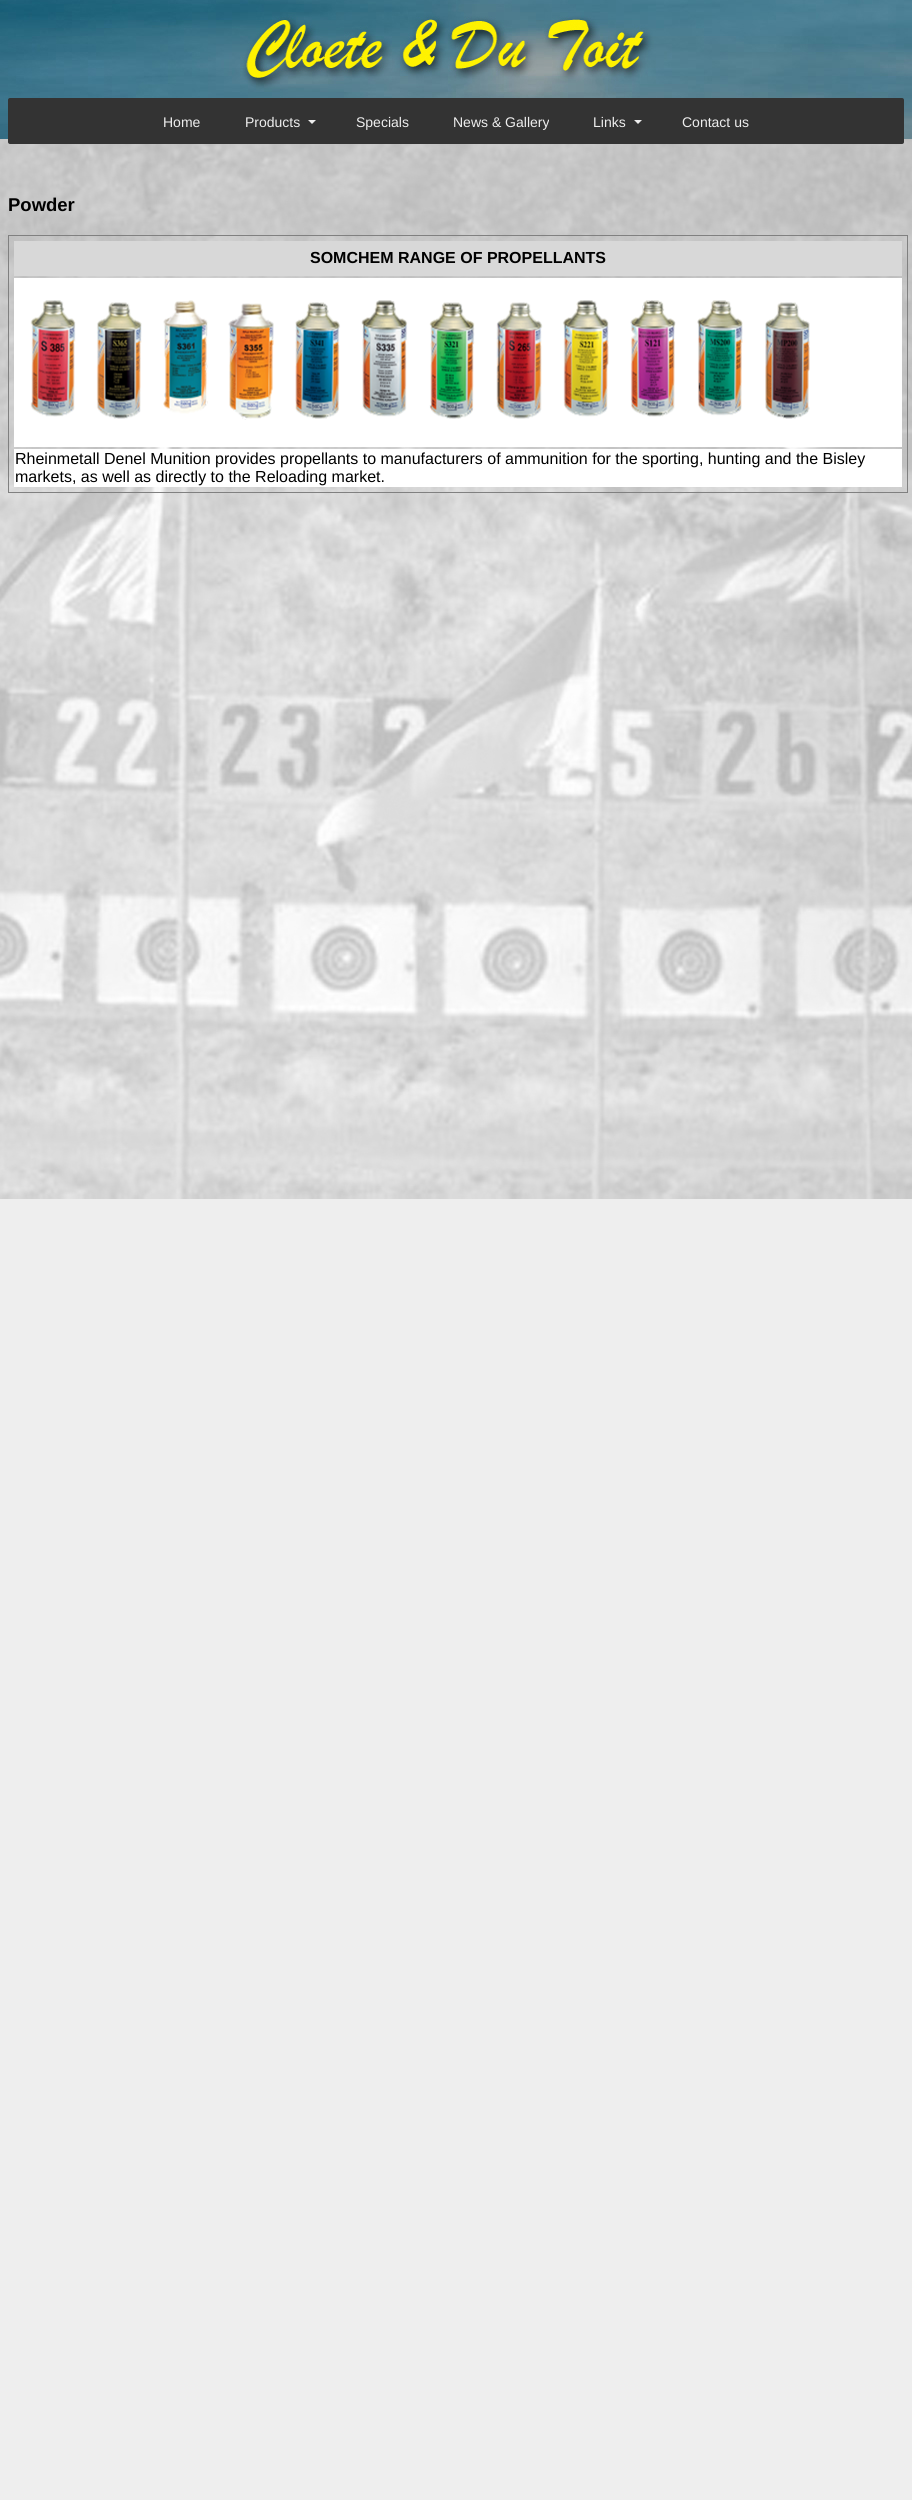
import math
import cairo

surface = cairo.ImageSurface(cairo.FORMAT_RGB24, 912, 2500)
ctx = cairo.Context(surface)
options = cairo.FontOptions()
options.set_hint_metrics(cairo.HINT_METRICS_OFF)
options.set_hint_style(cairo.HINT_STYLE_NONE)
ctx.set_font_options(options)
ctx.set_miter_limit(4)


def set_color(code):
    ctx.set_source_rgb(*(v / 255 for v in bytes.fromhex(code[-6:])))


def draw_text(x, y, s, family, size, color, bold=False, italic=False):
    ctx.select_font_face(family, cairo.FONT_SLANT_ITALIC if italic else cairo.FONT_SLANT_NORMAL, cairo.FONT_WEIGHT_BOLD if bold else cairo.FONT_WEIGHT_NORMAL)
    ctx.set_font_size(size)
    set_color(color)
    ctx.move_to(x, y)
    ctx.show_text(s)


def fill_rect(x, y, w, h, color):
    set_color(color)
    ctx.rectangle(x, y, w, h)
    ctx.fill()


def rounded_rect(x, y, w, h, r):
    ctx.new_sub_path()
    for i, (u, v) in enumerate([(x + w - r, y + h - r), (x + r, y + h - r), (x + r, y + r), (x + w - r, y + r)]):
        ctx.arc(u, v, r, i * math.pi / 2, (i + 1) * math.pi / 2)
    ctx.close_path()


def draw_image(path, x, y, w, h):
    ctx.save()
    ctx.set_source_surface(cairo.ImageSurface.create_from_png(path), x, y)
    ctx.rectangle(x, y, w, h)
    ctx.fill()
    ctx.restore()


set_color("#eeeeee")
ctx.paint()
draw_image("assets/img1.png", 0, 0, 912, 1199)
set_color("#333333")
rounded_rect(8, 98, 896, 46, 2)
ctx.fill()
draw_text(163, 127, "Home", "Liberation Sans", 14, "#eeeeee")
draw_text(245, 127, "Products", "Liberation Sans", 14, "#eeeeee")
ctx.new_path()
ctx.move_to(308, 120)
ctx.line_to(316, 120)
ctx.line_to(312, 124)
ctx.close_path()
ctx.fill()
draw_text(356, 127, "Specials", "Liberation Sans", 14, "#eeeeee")
draw_text(453, 127, "News & Gallery", "Liberation Sans", 14, "#eeeeee")
draw_text(593, 127, "Links", "Liberation Sans", 14, "#eeeeee")
ctx.new_path()
ctx.move_to(634, 120)
ctx.line_to(642, 120)
ctx.line_to(638, 124)
ctx.close_path()
ctx.fill()
draw_text(682, 127, "Contact us", "Liberation Sans", 14, "#eeeeee")
draw_text(8, 211, "Powder", "Liberation Sans", 18.5, "#000000", bold=True)
ctx.rectangle(8.5, 235.5, 899, 257)
set_color("#808080")
ctx.set_line_width(1)
ctx.stroke()
fill_rect(14, 241, 888, 35, "#d8d8d8")
draw_text(310, 263, "SOMCHEM RANGE OF PROPELLANTS", "Liberation Sans", 16, "#000000", bold=True)
fill_rect(14, 278, 888, 169, "#ffffff")
draw_image("assets/img2.png", 30, 300, 780, 120)
fill_rect(14, 449, 888, 38, "#ffffff")
draw_text(15, 464, "Rheinmetall Denel Munition provides propellants to manufacturers of ammunition for the sporting, hunting and the Bisley", "Liberation Sans", 16, "#000000")
draw_text(15, 482, "markets, as well as directly to the Reloading market.", "Liberation Sans", 16, "#000000")
surface.write_to_png("output.png")
